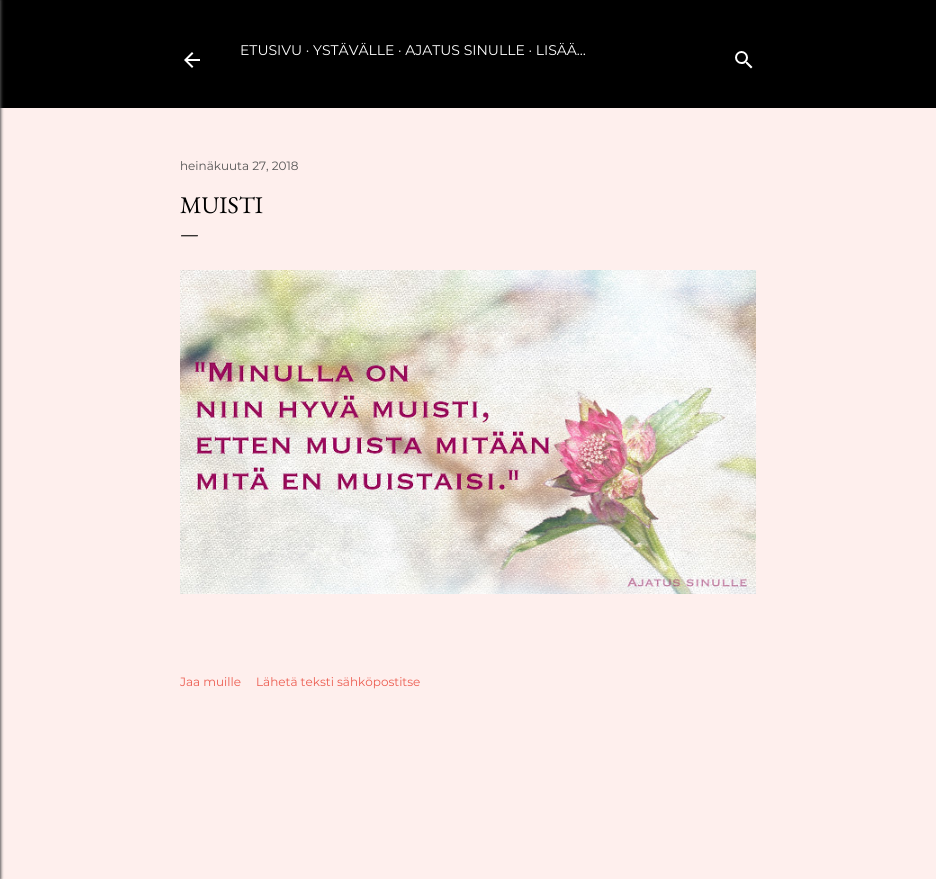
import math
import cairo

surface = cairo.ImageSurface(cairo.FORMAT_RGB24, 936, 879)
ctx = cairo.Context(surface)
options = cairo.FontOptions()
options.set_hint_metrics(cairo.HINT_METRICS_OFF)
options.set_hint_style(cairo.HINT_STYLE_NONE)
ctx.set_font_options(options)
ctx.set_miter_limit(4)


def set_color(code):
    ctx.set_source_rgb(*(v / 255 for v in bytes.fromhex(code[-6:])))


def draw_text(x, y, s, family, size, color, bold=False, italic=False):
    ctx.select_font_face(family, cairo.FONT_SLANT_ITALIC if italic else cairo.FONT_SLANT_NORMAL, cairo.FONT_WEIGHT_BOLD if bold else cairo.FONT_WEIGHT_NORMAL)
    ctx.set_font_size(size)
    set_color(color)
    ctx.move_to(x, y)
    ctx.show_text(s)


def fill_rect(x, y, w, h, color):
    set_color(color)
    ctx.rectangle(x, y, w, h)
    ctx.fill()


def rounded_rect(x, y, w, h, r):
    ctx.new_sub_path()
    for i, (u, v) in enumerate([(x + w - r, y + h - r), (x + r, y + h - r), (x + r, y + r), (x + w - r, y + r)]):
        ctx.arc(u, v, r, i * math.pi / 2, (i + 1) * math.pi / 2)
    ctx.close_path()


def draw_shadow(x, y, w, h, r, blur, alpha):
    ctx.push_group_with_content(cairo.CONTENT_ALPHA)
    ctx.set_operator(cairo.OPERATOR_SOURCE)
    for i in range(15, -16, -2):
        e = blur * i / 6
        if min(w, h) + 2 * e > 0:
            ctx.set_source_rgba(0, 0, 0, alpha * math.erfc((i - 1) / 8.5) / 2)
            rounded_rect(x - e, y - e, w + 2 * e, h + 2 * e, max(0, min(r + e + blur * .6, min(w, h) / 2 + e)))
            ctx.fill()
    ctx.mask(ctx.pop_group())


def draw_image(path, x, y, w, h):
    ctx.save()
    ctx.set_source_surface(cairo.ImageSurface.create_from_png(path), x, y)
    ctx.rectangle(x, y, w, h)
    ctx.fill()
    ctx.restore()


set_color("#feefed")
ctx.paint()
fill_rect(0, 0, 936, 108, "#000000")
set_color("#535353")
draw_shadow(-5, 0, 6, 879, 0, 1.5, 1)
draw_text(240, 55, "ETUSIVU · YSTÄVÄLLE · AJATUS SINULLE · LISÄÄ…", "Montserrat", 14, "#ffffff")
draw_image("assets/img1.png", 184, 52, 16, 16)
draw_image("assets/img2.png", 735, 51, 18, 18)
draw_text(180, 170, "heinäkuuta 27, 2018", "Montserrat", 12, "#535353")
draw_text(180, 213, "MUISTI", "EB Garamond", 24, "#000000")
draw_text(180, 240, "—", "EB Garamond", 20, "#000000")
draw_image("assets/img3.png", 180, 270, 576, 324)
draw_text(180, 686, "Jaa muille", "Montserrat", 12, "#ec5c50")
draw_text(256, 686, "Lähetä teksti sähköpostitse", "Montserrat", 12, "#ec5c50")
surface.write_to_png("output.png")
